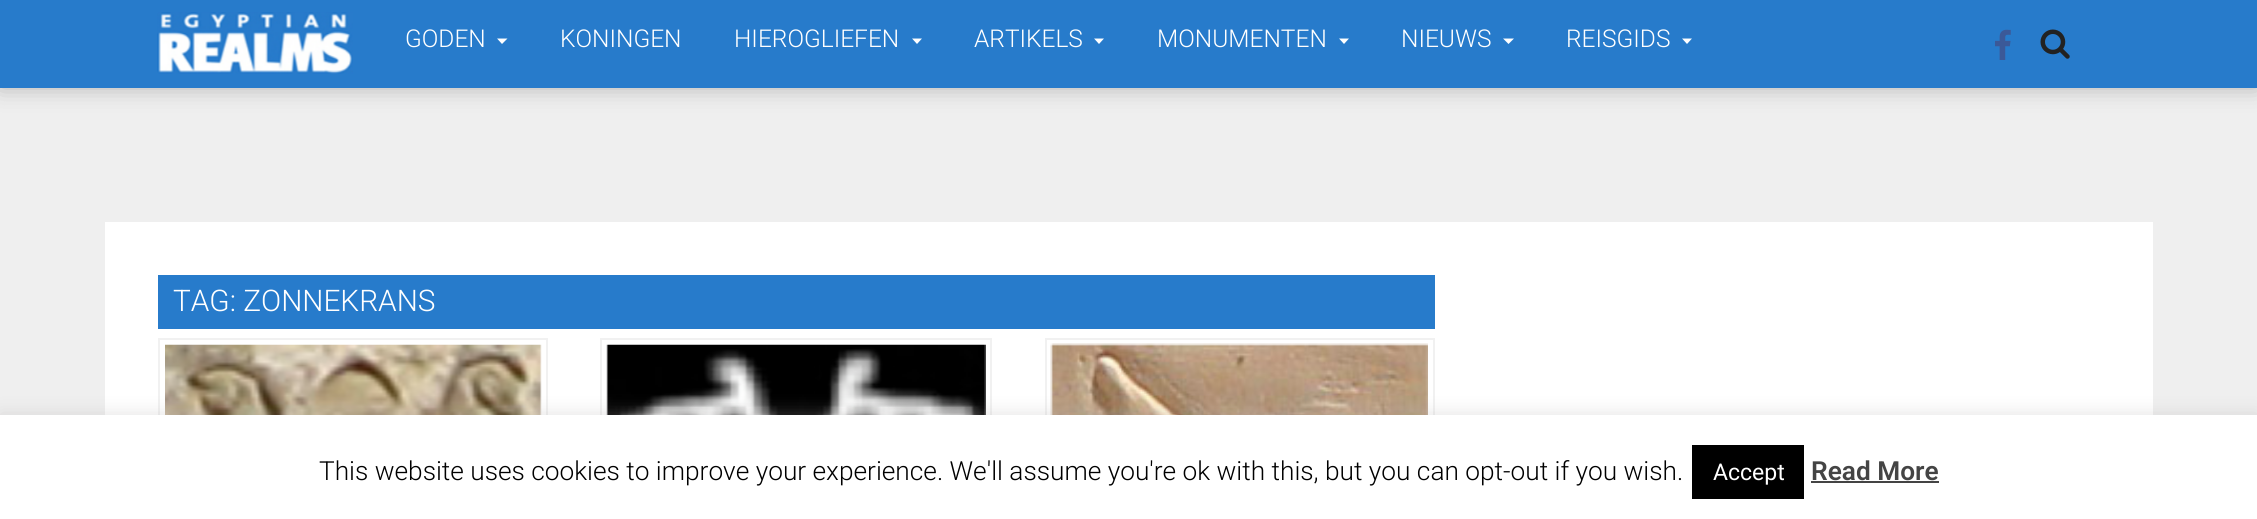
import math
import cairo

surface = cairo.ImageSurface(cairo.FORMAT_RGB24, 2257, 519)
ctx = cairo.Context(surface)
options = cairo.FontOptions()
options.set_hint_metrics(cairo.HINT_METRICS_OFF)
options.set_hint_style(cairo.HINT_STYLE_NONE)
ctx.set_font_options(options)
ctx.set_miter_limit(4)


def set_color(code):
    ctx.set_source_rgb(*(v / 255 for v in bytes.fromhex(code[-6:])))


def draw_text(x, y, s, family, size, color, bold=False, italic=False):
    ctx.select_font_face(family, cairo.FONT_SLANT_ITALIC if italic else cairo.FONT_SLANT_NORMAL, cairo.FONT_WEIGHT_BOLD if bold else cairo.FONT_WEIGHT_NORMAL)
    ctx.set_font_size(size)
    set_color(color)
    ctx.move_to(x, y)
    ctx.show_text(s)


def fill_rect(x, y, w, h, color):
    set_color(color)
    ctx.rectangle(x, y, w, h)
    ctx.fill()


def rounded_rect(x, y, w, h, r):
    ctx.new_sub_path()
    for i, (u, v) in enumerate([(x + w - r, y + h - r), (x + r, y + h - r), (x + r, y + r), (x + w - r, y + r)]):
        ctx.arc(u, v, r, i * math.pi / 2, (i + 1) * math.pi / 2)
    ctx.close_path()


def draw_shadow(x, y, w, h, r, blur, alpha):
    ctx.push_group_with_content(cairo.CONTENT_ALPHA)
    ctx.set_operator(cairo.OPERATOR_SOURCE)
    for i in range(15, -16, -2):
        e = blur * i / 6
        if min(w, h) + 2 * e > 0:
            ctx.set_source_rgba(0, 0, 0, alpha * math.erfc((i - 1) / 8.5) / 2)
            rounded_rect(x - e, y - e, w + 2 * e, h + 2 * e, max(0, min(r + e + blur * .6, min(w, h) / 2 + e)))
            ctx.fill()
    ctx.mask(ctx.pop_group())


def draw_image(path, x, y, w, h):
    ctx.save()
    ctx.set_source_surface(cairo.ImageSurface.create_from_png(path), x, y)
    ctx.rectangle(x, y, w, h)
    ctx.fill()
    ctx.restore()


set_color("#efefef")
ctx.paint()
set_color("#000000")
draw_shadow(0, 0, 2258, 88, 0, 11.5, 0.25)
fill_rect(0, 0, 2257, 88, "#277bcb")
draw_image("assets/img1.png", 157, 12, 196, 62)
draw_text(405, 47, "GODEN", "Roboto Light", 24.5, "#ffffff")
ctx.new_path()
ctx.move_to(497, 38.5)
ctx.line_to(507.5, 38.5)
ctx.line_to(502, 44)
ctx.close_path()
ctx.fill()
draw_text(560, 47, "KONINGEN", "Roboto Light", 24.5, "#ffffff")
draw_text(734, 47, "HIEROGLIEFEN", "Roboto Light", 24.5, "#ffffff")
ctx.new_path()
ctx.move_to(912, 38.5)
ctx.line_to(922, 38.5)
ctx.line_to(917, 44)
ctx.close_path()
ctx.fill()
draw_text(974, 47, "ARTIKELS", "Roboto Light", 24.5, "#ffffff")
ctx.new_path()
ctx.move_to(1094, 38.5)
ctx.line_to(1104, 38.5)
ctx.line_to(1099, 44)
ctx.close_path()
ctx.fill()
draw_text(1157, 47, "MONUMENTEN", "Roboto Light", 24.5, "#ffffff")
ctx.new_path()
ctx.move_to(1339, 38.5)
ctx.line_to(1349, 38.5)
ctx.line_to(1344, 44)
ctx.close_path()
ctx.fill()
draw_text(1401, 47, "NIEUWS", "Roboto Light", 24.5, "#ffffff")
ctx.new_path()
ctx.move_to(1503, 38.5)
ctx.line_to(1514, 38.5)
ctx.line_to(1508.5, 44)
ctx.close_path()
ctx.fill()
draw_text(1566, 47, "REISGIDS", "Roboto Light", 24.5, "#ffffff")
ctx.new_path()
ctx.move_to(1682, 38.5)
ctx.line_to(1692, 38.5)
ctx.line_to(1687, 44)
ctx.close_path()
ctx.fill()
draw_image("assets/img2.png", 1995, 29, 16, 31)
draw_image("assets/img3.png", 2040, 29, 30, 30)
fill_rect(105, 222, 2048, 193, "#ffffff")
fill_rect(158, 275, 1277, 54, "#277bcb")
draw_text(173, 311, "TAG: ZONNEKRANS", "Roboto Light", 29.75, "#ffffff")
ctx.rectangle(159, 339, 388, 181)
set_color("#f1f1f1")
ctx.stroke()
fill_rect(540, 345, 1, 70, "#f1f2f4")
draw_image("assets/img4.png", 165, 344, 377, 71)
ctx.rectangle(601, 339, 390, 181)
set_color("#f1f1f1")
ctx.stroke()
fill_rect(607, 345, 378, 70, "#f1f2f4")
draw_image("assets/img5.png", 606, 344, 380, 71)
ctx.rectangle(1046, 339, 388, 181)
set_color("#f1f1f1")
ctx.stroke()
fill_rect(1052, 345, 376, 70, "#f1f2f4")
draw_image("assets/img6.png", 1050, 343, 378, 72)
set_color("#acabab")
draw_shadow(0, 413, 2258, 105, 0, 9, 0.3)
fill_rect(0, 415, 2257, 104, "#ffffff")
draw_text(319, 480, "This website uses cookies to improve your experience. We'll assume you're ok with this, but you can opt-out if you wish.", "Roboto Light", 26.25, "#000000")
fill_rect(1692, 445, 112, 54, "#000000")
draw_text(1713, 480, "Accept", "Roboto", 23, "#ffffff")
draw_text(1811, 480, "Read More", "Roboto SemiBold", 26.25, "#444444")
fill_rect(1811, 481, 128, 2, "#444444")
surface.write_to_png("output.png")
